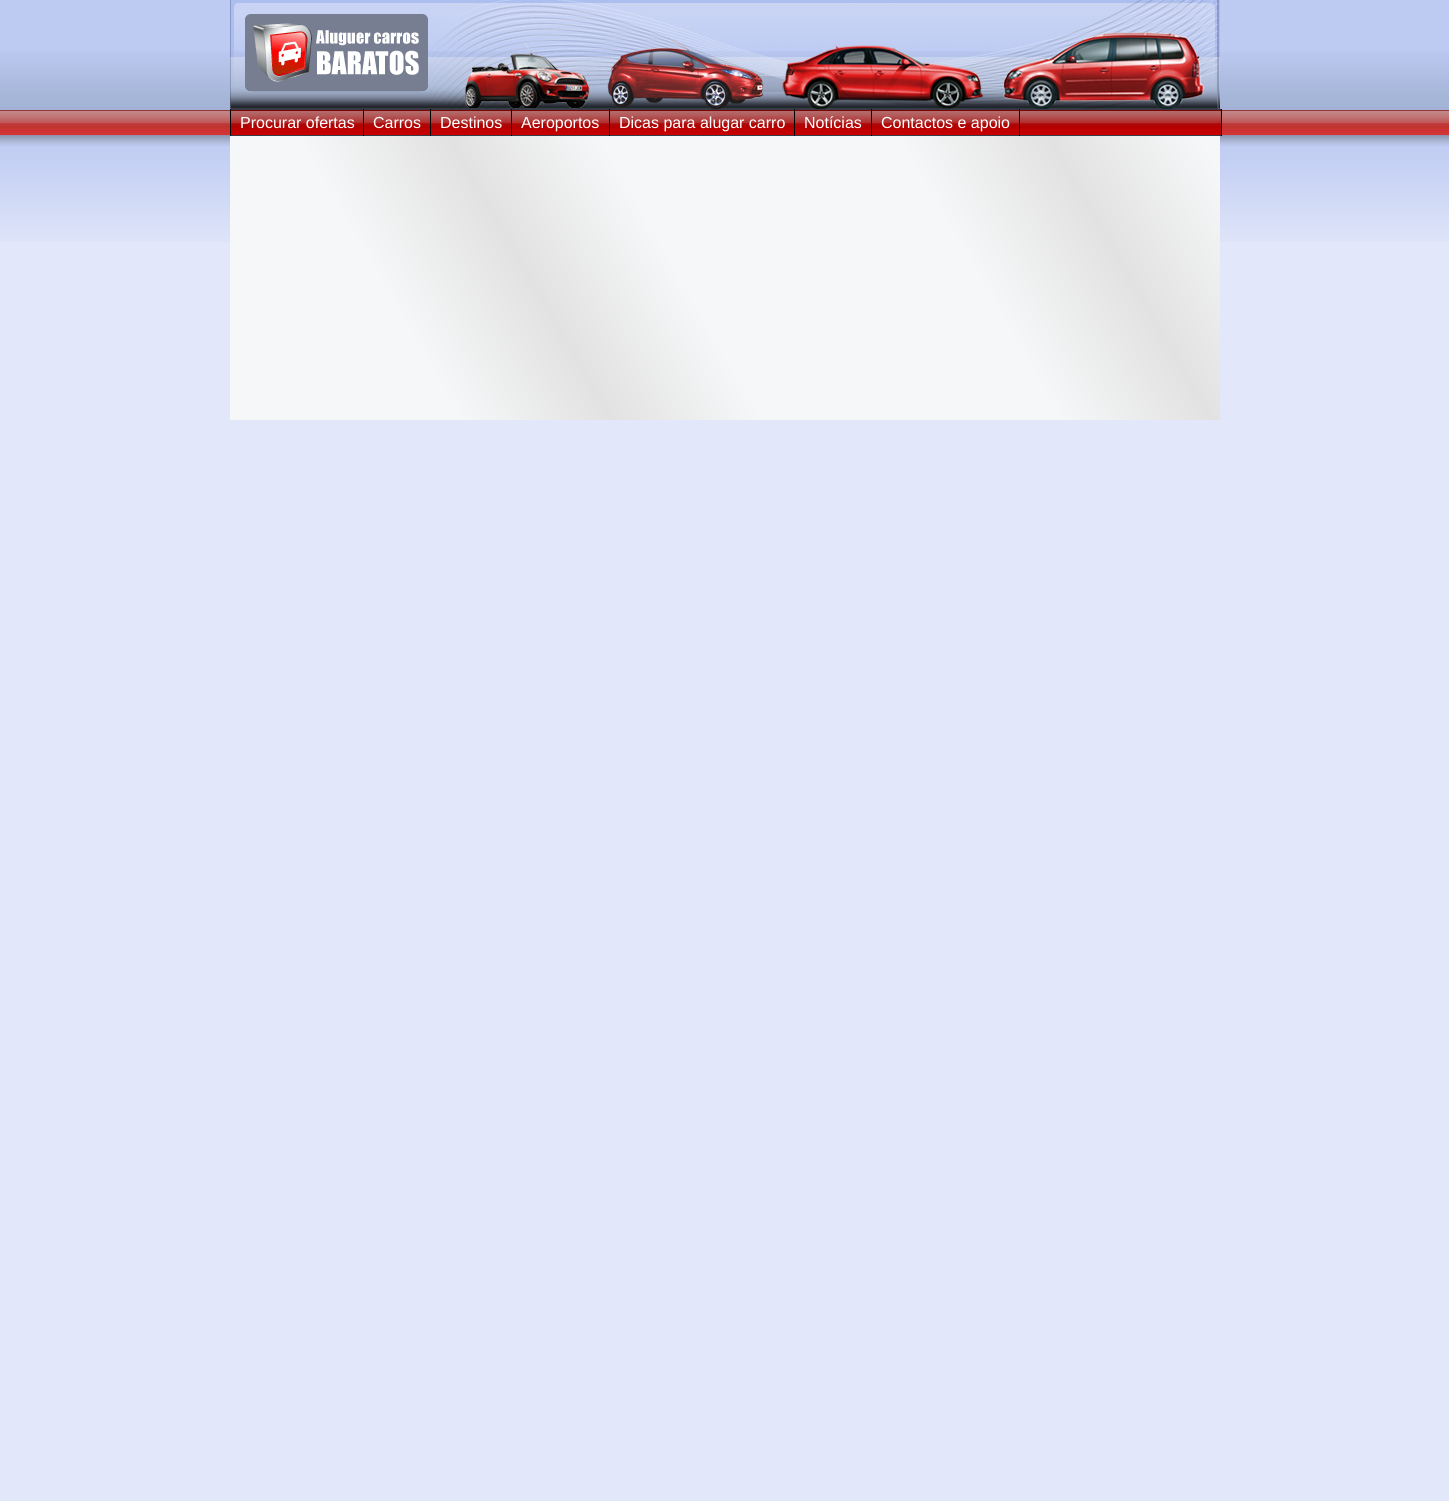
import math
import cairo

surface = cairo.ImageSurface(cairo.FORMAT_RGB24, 1449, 1501)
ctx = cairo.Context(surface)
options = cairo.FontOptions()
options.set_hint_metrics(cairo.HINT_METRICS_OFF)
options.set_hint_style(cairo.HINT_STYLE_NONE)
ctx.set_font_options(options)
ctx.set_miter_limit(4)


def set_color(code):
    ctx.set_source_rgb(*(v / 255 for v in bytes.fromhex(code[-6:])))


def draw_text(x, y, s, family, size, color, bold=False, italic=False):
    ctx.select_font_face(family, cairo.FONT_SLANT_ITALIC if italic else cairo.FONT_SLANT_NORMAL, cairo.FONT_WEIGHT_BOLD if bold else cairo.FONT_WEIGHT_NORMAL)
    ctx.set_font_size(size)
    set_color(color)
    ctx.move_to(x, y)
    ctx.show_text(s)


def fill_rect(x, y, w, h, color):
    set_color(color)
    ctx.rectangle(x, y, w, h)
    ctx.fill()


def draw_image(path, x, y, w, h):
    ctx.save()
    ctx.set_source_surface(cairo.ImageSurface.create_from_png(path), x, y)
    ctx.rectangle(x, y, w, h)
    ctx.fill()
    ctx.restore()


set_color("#e2e7fa")
ctx.paint()
draw_image("assets/img1.png", 0, 0, 1449, 242)
draw_image("assets/img2.png", 444, 0, 776, 109)
draw_image("assets/img3.png", 230, 0, 214, 109)
draw_image("assets/img4.png", 231, 109, 990, 27)
fill_rect(1221, 109, 1, 27, "#000000")
fill_rect(230, 109, 1, 27, "#000000")
draw_text(240, 128, "Procurar ofertas", "Liberation Sans", 16, "#ffffff")
fill_rect(363, 109, 1, 27, "#000000")
draw_text(373, 128, "Carros", "Liberation Sans", 16, "#ffffff")
fill_rect(430, 109, 1, 27, "#000000")
draw_text(440, 128, "Destinos", "Liberation Sans", 16, "#ffffff")
fill_rect(511, 109, 1, 27, "#000000")
draw_text(521, 128, "Aeroportos", "Liberation Sans", 16, "#ffffff")
fill_rect(609, 109, 1, 27, "#000000")
draw_text(619, 128, "Dicas para alugar carro", "Liberation Sans", 16, "#ffffff")
fill_rect(794, 109, 1, 27, "#000000")
draw_text(804, 128, "Notícias", "Liberation Sans", 16, "#ffffff")
fill_rect(871, 109, 1, 27, "#000000")
draw_text(881, 128, "Contactos e apoio", "Liberation Sans", 16, "#ffffff")
fill_rect(1019, 109, 1, 27, "#000000")
gradient = cairo.LinearGradient(244, 443, 816, 113)
gradient.add_color_stop_rgba(0, 0.965, 0.969, 0.973, 1)
gradient.add_color_stop_rgba(0.3, 0.965, 0.969, 0.973, 1)
gradient.add_color_stop_rgba(0.5, 0.886, 0.886, 0.886, 1)
gradient.add_color_stop_rgba(0.7, 0.965, 0.969, 0.973, 1)
gradient.add_color_stop_rgba(1, 0.965, 0.969, 0.973, 1)
ctx.set_source(gradient)
ctx.rectangle(230, 136, 600, 284)
ctx.fill()
gradient = cairo.LinearGradient(844, 443, 1416, 113)
gradient.add_color_stop_rgba(0, 0.965, 0.969, 0.973, 1)
gradient.add_color_stop_rgba(0.3, 0.965, 0.969, 0.973, 1)
gradient.add_color_stop_rgba(0.5, 0.886, 0.886, 0.886, 1)
gradient.add_color_stop_rgba(0.7, 0.965, 0.969, 0.973, 1)
gradient.add_color_stop_rgba(1, 0.965, 0.969, 0.973, 1)
ctx.set_source(gradient)
ctx.rectangle(830, 136, 390, 284)
ctx.fill()
surface.write_to_png("output.png")
